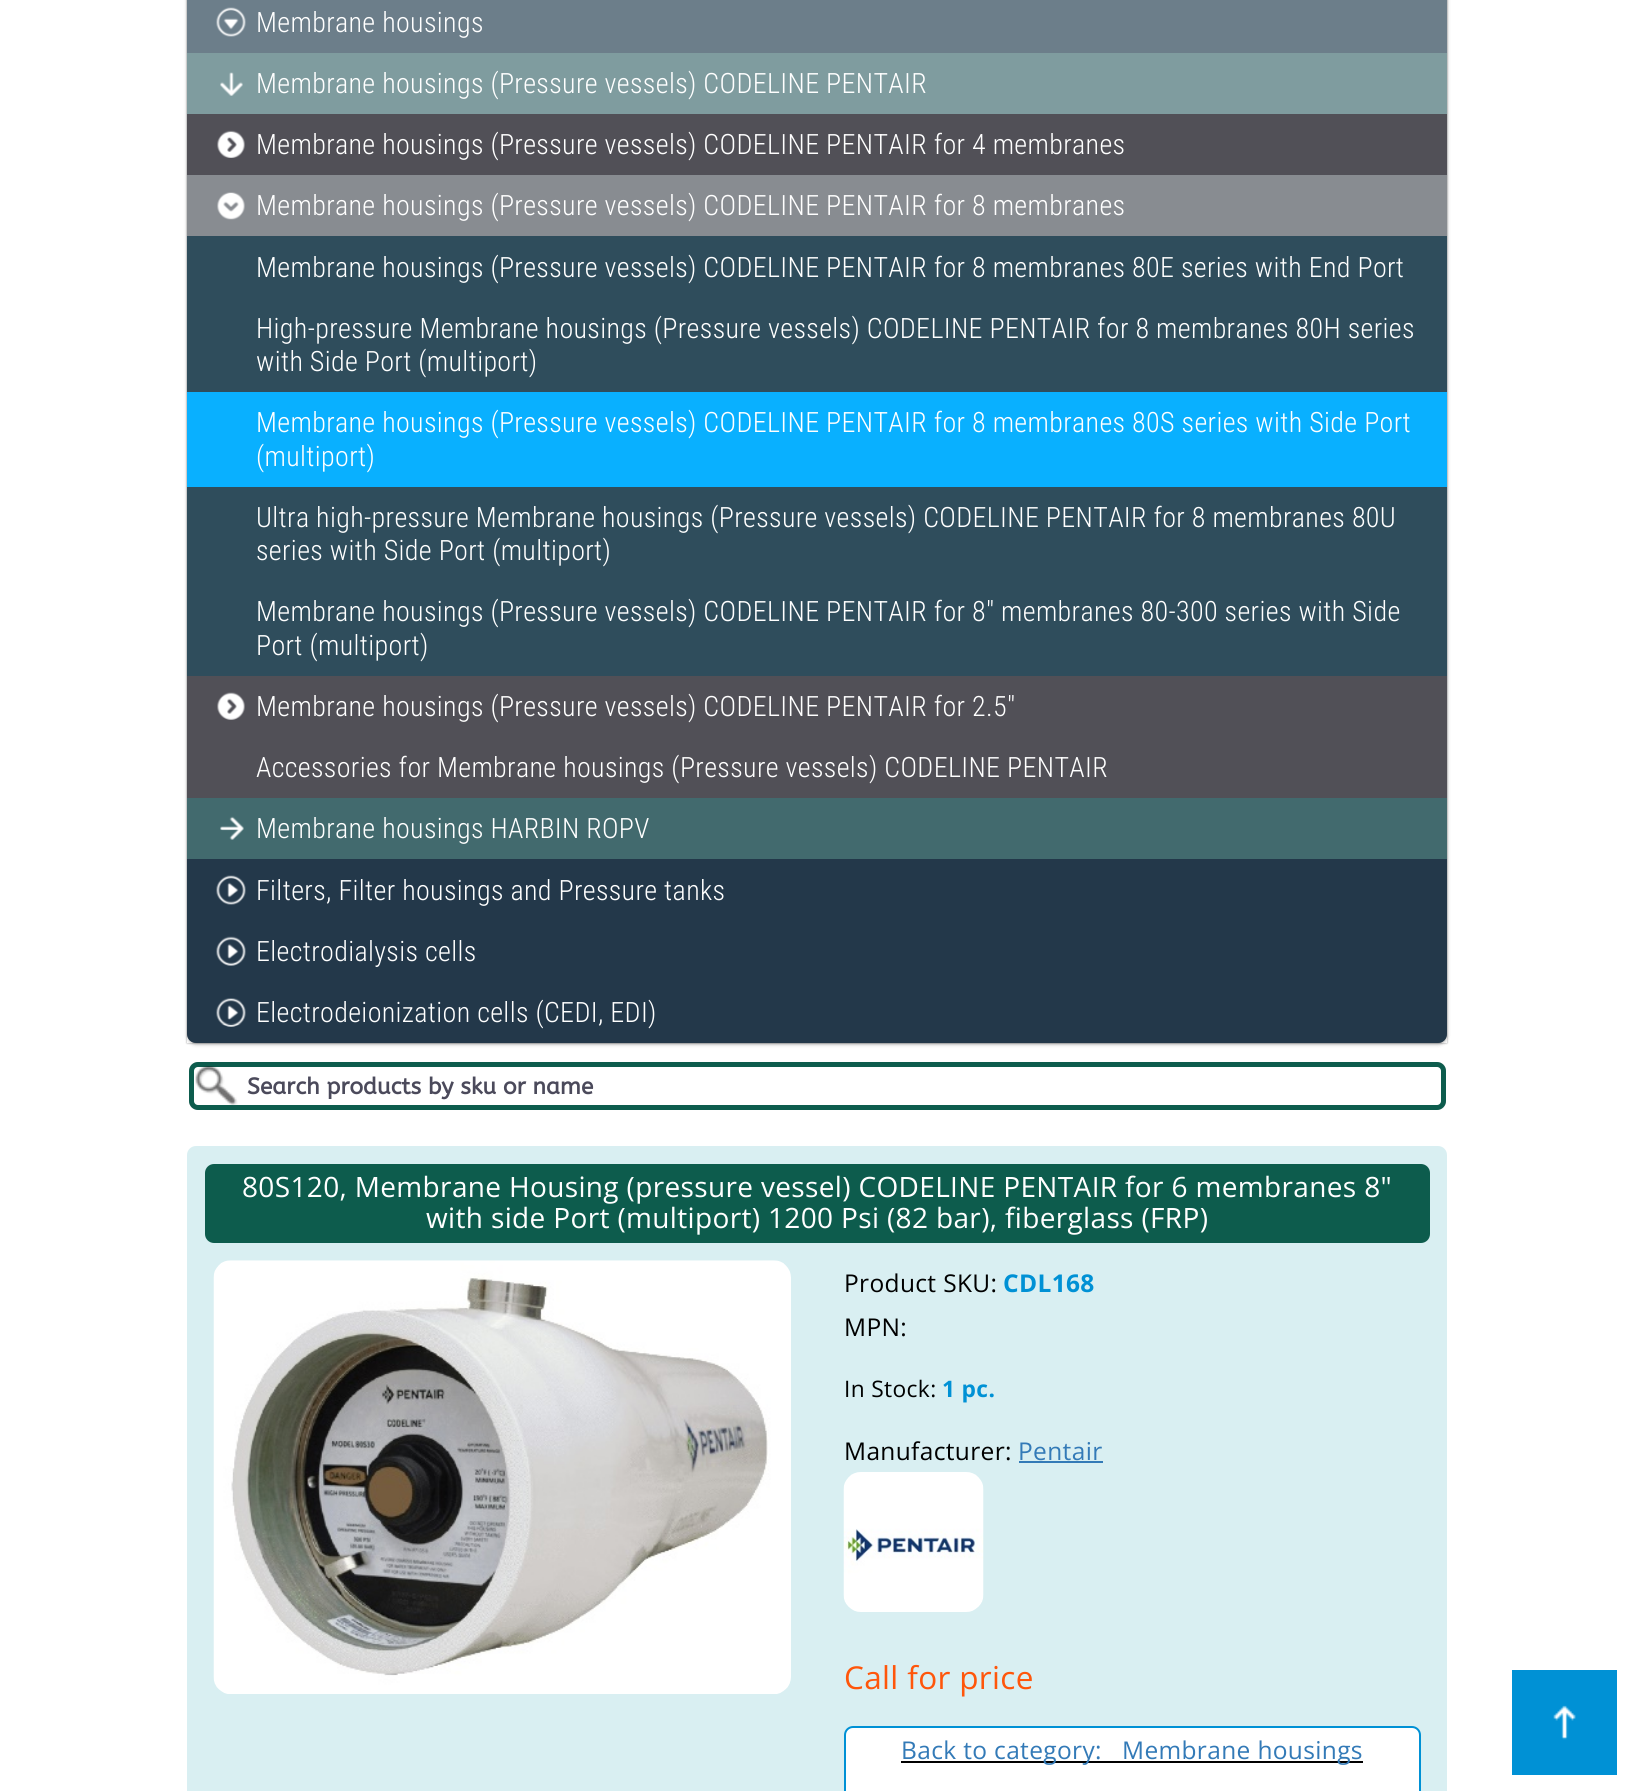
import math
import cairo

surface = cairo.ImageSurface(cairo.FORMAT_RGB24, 1633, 1791)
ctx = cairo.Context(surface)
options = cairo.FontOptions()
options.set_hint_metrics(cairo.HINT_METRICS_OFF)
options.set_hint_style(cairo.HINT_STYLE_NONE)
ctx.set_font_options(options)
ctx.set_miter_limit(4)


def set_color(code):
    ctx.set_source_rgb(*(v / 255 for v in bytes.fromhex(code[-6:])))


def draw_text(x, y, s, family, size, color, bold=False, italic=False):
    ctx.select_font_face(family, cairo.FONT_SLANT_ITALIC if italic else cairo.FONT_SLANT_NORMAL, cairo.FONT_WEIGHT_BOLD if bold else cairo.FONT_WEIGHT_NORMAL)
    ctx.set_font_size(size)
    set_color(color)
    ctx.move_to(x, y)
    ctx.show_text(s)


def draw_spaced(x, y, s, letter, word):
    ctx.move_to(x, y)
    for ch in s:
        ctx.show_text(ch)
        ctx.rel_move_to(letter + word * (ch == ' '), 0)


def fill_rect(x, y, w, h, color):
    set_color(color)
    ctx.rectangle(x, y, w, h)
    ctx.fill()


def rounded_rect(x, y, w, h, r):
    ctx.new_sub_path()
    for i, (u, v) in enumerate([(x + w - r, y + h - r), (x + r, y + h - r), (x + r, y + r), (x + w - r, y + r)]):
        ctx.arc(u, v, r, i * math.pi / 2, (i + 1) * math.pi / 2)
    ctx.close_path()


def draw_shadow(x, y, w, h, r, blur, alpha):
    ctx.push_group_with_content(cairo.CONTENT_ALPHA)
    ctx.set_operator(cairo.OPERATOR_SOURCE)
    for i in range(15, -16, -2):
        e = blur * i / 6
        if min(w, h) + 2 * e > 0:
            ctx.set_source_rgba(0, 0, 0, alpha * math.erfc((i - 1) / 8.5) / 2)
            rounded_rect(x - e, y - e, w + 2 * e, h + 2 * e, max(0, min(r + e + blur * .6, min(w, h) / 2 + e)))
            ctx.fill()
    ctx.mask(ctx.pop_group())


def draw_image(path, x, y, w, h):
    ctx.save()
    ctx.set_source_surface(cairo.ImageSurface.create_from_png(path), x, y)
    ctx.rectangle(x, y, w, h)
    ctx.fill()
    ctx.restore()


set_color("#ffffff")
ctx.paint()
set_color("#000000")
draw_shadow(187, -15, 1260, 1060, 9, 2, 0.1)
draw_shadow(189, -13, 1257, 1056, 7, 2, 0.4)
ctx.save()
ctx.set_fill_rule(cairo.FILL_RULE_EVEN_ODD)
ctx.new_path()
ctx.move_to(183, 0)
ctx.line_to(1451, 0)
ctx.line_to(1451, 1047)
ctx.line_to(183, 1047)
ctx.close_path()
ctx.move_to(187, -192)
ctx.line_to(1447, -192)
ctx.line_to(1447, 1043)
ctx.line_to(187, 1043)
ctx.close_path()
ctx.clip()
draw_shadow(187, -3, 1260, 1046, 0, 1, 0.2)
ctx.restore()
ctx.save()
rounded_rect(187, -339, 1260, 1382, 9)
ctx.clip()
draw_shadow(186, -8, 1263, 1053, 0, 2.5, 0.2)
ctx.restore()
ctx.save()
ctx.set_fill_rule(cairo.FILL_RULE_EVEN_ODD)
ctx.new_path()
ctx.move_to(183, 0)
ctx.line_to(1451, 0)
ctx.line_to(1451, 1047)
ctx.line_to(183, 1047)
ctx.close_path()
ctx.move_to(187, -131)
ctx.line_to(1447, -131)
ctx.line_to(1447, 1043)
ctx.line_to(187, 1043)
ctx.close_path()
ctx.clip()
draw_shadow(187, -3, 1260, 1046, 0, 1, 0.2)
ctx.restore()
ctx.save()
rounded_rect(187, -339, 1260, 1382, 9)
ctx.clip()
draw_shadow(186, -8, 1263, 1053, 0, 2.5, 0.2)
ctx.restore()
set_color("#23384a")
ctx.new_path()
ctx.move_to(187, -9)
ctx.line_to(1447, -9)
ctx.line_to(1447, 1034)
ctx.curve_to(1447, 1039, 1443, 1043, 1438, 1043)
ctx.line_to(196, 1043)
ctx.curve_to(191, 1043, 187, 1039, 187, 1034)
ctx.close_path()
ctx.fill()
fill_rect(187, 0, 1260, 53, "#6c7e8a")
draw_image("assets/img1.png", 216, 7, 30, 30)
ctx.select_font_face("Roboto Condensed Light")
ctx.set_font_size(28)
set_color("#ffffff")
draw_spaced(256, 32, "Membrane housings", 0.35, 0)
fill_rect(187, 798, 1260, 61, "#426a6e")
fill_rect(187, 53, 1260, 61, "#7f9c9f")
draw_image("assets/img2.png", 220, 72, 23, 24)
set_color("#ffffff")
draw_spaced(256, 93, "Membrane housings (Pressure vessels) CODELINE PENTAIR", 0.35, 0)
fill_rect(187, 114, 1260, 684, "#515057")
draw_image("assets/img3.png", 217, 130, 28, 28)
set_color("#ffffff")
draw_spaced(256, 154, "Membrane housings (Pressure vessels) CODELINE PENTAIR for 4 membranes", 0.35, 0)
fill_rect(187, 175, 1260, 61, "#888c91")
draw_image("assets/img4.png", 217, 192, 28, 28)
set_color("#ffffff")
draw_spaced(256, 215, "Membrane housings (Pressure vessels) CODELINE PENTAIR for 8 membranes", 0.35, 0)
fill_rect(187, 236, 1260, 440, "#2f4d5c")
set_color("#ffffff")
draw_spaced(256, 277, "Membrane housings (Pressure vessels) CODELINE PENTAIR for 8 membranes 80E series with End Port", 0.35, 0)
draw_spaced(256, 338, "High-pressure Membrane housings (Pressure vessels) CODELINE PENTAIR for 8 membranes 80H series", 0.35, 0)
draw_spaced(256, 371, "with Side Port (multiport)", 0.35, 0)
fill_rect(187, 392, 1260, 95, "#09b0ff")
set_color("#ffffff")
draw_spaced(256, 432, "Membrane housings (Pressure vessels) CODELINE PENTAIR for 8 membranes 80S series with Side Port", 0.35, 0)
draw_spaced(256, 466, "(multiport)", 0.35, 0)
draw_spaced(256, 527, "Ultra high-pressure Membrane housings (Pressure vessels) CODELINE PENTAIR for 8 membranes 80U", 0.35, 0)
draw_spaced(256, 560, "series with Side Port (multiport)", 0.35, 0)
draw_spaced(256, 621, "Membrane housings (Pressure vessels) CODELINE PENTAIR for 8\" membranes 80-300 series with Side", 0.35, 0)
draw_spaced(256, 655, "Port (multiport)", 0.35, 0)
draw_image("assets/img5.png", 217, 692, 28, 28)
draw_spaced(256, 716, "Membrane housings (Pressure vessels) CODELINE PENTAIR for 2.5\"", 0.35, 0)
draw_spaced(256, 777, "Accessories for Membrane housings (Pressure vessels) CODELINE PENTAIR", 0.35, 0)
draw_image("assets/img6.png", 220, 816, 24, 24)
draw_spaced(256, 838, "Membrane housings HARBIN ROPV", 0.35, 0)
draw_image("assets/img7.png", 216, 875, 30, 30)
draw_spaced(256, 900, "Filters, Filter housings and Pressure tanks", 0.35, 0)
draw_image("assets/img8.png", 216, 936, 30, 30)
draw_spaced(256, 961, "Electrodialysis cells", 0.35, 0)
draw_image("assets/img9.png", 216, 998, 30, 29)
draw_spaced(256, 1022, "Electrodeionization cells (CEDI, EDI)", 0.35, 0)
rounded_rect(190, 1063, 1255, 46, 8)
set_color("#bfbfbf")
ctx.stroke()
ctx.save()
ctx.set_fill_rule(cairo.FILL_RULE_EVEN_ODD)
ctx.new_path()
ctx.move_to(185, 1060)
ctx.line_to(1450, 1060)
ctx.line_to(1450, 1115)
ctx.line_to(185, 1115)
ctx.close_path()
ctx.move_to(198, 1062)
ctx.line_to(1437, 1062)
ctx.curve_to(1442, 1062, 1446, 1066, 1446, 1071)
ctx.line_to(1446, 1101)
ctx.curve_to(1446, 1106, 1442, 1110, 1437, 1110)
ctx.line_to(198, 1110)
ctx.curve_to(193, 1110, 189, 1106, 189, 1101)
ctx.line_to(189, 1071)
ctx.curve_to(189, 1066, 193, 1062, 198, 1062)
ctx.close_path()
ctx.clip()
set_color("#ffffff")
draw_shadow(189, 1064, 1257, 47, 9, 1, 0.8)
ctx.restore()
rounded_rect(191.5, 1064.5, 1252, 43, 6.5)
set_color("#0d5c4d")
ctx.set_line_width(5)
ctx.stroke()
draw_image("assets/img10.png", 195, 1066, 43, 40)
draw_text(247, 1094, "Search products by sku or name", "ABeeZee", 22.75, "#4b4a5b", bold=True)
set_color("#d9eff2")
rounded_rect(187, 1146, 1260, 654, 9)
ctx.fill()
set_color("#0d5c4d")
rounded_rect(205, 1164, 1225, 79, 9)
ctx.fill()
ctx.select_font_face("Open Sans")
ctx.set_font_size(28)
set_color("#ffffff")
draw_spaced(242, 1197, "80S120, Membrane Housing (pressure vessel) CODELINE PENTAIR for 6 membranes 8\"", 0.35, 0)
draw_spaced(426, 1228, "with side Port (multiport) 1200 Psi (82 bar), fiberglass (FRP)", 0.35, 0)
draw_image("assets/img11.png", 213, 1260, 578, 434)
ctx.set_font_size(24.5)
set_color("#000000")
draw_spaced(844, 1292, "Product SKU:", 0.35, 0)
ctx.select_font_face("Open Sans", cairo.FONT_SLANT_NORMAL, cairo.FONT_WEIGHT_BOLD)
set_color("#0091d5")
draw_spaced(1003, 1292, "CDL168", 0.35, 0)
ctx.select_font_face("Open Sans")
set_color("#000000")
draw_spaced(844, 1336, "MPN:", 0.35, 0)
ctx.set_font_size(22.75)
draw_spaced(844, 1397, "In Stock:", 0.35, 0)
ctx.select_font_face("Open Sans", cairo.FONT_SLANT_NORMAL, cairo.FONT_WEIGHT_BOLD)
set_color("#0091d5")
draw_spaced(942, 1397, "1 pc.", 0.35, 0)
ctx.select_font_face("Open Sans")
ctx.set_font_size(24.5)
set_color("#000000")
draw_spaced(844, 1460, "Manufacturer:", 0.35, 0)
set_color("#337ab7")
draw_spaced(1018, 1460, "Pentair", 0.35, 0)
fill_rect(1019, 1461, 84, 2, "#337ab7")
draw_image("assets/img12.png", 843, 1472, 141, 140)
ctx.set_font_size(31.5)
set_color("#ff560b")
draw_spaced(844, 1689, "Call for price", 0.35, 0)
set_color("#ffffff")
rounded_rect(845, 1727, 575, 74, 8)
ctx.fill_preserve()
set_color("#0091d5")
ctx.set_line_width(2)
ctx.stroke()
fill_rect(901, 1761, 462, 2, "#000000")
ctx.set_font_size(24.5)
set_color("#337ab7")
draw_spaced(901, 1759, "Back to category:", 0.35, 0)
draw_spaced(1122, 1759, "Membrane housings", 0.35, 0)
fill_rect(1512, 1670, 105, 105, "#0091d5")
draw_image("assets/img13.png", 1553, 1705, 23, 35)
surface.write_to_png("output.png")
